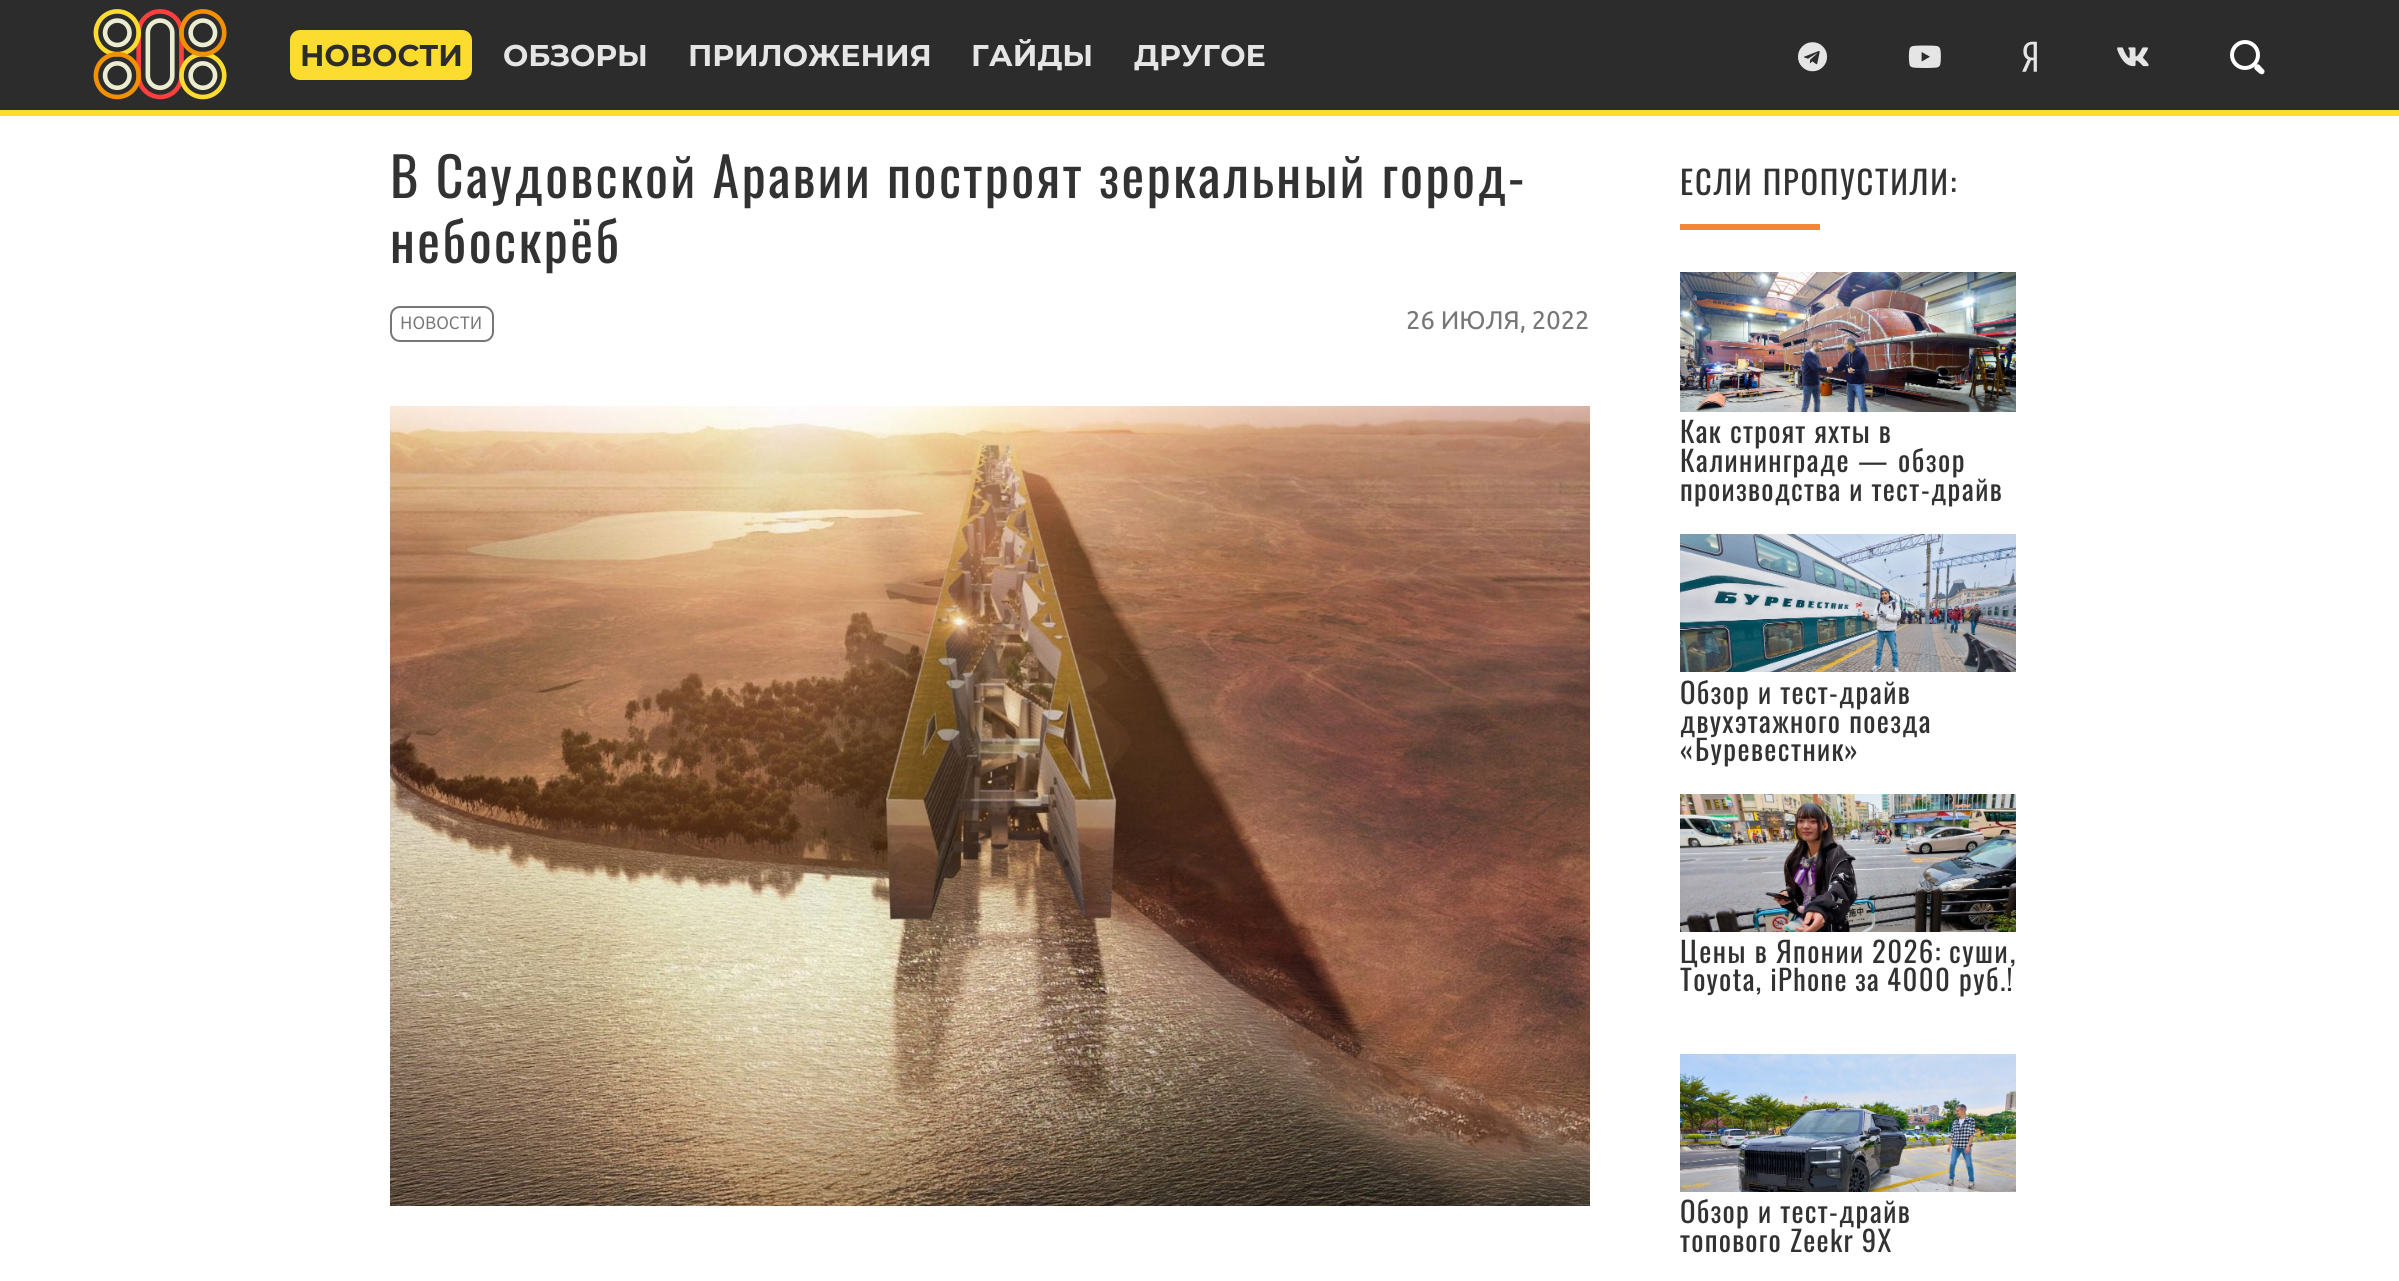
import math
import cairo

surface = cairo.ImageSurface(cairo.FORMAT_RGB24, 2399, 1281)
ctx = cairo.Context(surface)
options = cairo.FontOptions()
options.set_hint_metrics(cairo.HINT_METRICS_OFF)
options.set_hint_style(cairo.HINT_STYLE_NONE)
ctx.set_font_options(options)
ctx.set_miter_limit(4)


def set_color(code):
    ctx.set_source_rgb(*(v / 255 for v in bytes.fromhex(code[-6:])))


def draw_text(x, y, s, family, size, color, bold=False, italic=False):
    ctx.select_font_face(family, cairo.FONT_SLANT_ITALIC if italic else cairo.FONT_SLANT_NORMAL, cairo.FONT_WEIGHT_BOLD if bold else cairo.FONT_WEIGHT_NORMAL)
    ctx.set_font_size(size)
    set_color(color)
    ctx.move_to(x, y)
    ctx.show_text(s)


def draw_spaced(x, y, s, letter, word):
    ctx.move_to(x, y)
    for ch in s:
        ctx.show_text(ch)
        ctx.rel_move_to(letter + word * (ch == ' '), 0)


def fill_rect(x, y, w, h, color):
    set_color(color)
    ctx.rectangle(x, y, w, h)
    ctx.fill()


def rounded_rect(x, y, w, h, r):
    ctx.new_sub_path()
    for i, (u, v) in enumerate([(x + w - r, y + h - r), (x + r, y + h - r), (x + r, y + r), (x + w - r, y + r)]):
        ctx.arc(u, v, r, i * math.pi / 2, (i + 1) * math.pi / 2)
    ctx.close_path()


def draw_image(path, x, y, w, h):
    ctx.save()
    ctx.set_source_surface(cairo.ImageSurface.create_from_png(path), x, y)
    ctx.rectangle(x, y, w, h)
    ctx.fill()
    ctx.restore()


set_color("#ffffff")
ctx.paint()
fill_rect(0, 0, 2399, 110, "#2c2c2c")
draw_image("assets/img1.png", 93, 9, 134, 91)
set_color("#fcdc2f")
rounded_rect(290, 30, 182, 50, 10)
ctx.fill()
draw_text(300, 66, "НОВОСТИ", "Montserrat", 30, "#2c2c2c", bold=True)
draw_text(503, 66, "ОБЗОРЫ", "Montserrat", 30, "#e5e5e5", bold=True)
draw_text(688, 66, "ПРИЛОЖЕНИЯ", "Montserrat", 30, "#e5e5e5", bold=True)
draw_text(971, 66, "ГАЙДЫ", "Montserrat", 30, "#e5e5e5", bold=True)
draw_text(1134, 66, "ДРУГОЕ", "Montserrat", 30, "#e5e5e5", bold=True)
draw_image("assets/img2.png", 1798, 42, 30, 30)
draw_image("assets/img3.png", 1908, 45, 33, 23)
draw_image("assets/img4.png", 2022, 41, 15, 31)
draw_image("assets/img5.png", 2117, 47, 32, 20)
ctx.arc(2245, 55, 13, 0, 2 * math.pi)
set_color("#ffffff")
ctx.set_line_width(4)
ctx.stroke()
ctx.new_path()
ctx.move_to(2259.5, 65)
ctx.line_to(2264.5, 70.5)
ctx.curve_to(2264.5, 71, 2264.5, 72.5, 2264, 73)
ctx.curve_to(2261.5, 77, 2257, 71, 2255, 69.5)
ctx.curve_to(2252.5, 66.5, 2256.5, 62.5, 2259.5, 65)
ctx.close_path()
ctx.fill()
fill_rect(0, 110, 2399, 6, "#fcdc2f")
ctx.select_font_face("Oswald")
ctx.set_font_size(54)
set_color("#333232")
draw_spaced(390, 198, "В Саудовской Аравии построят зеркальный город", 2.5, 0)
ctx.select_font_face("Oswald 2")
draw_spaced(1508, 198, "-", 2, 0)
ctx.select_font_face("Oswald")
draw_spaced(390, 263, "небоскрёб", 2.5, 0)
rounded_rect(391, 307, 102, 34, 9)
set_color("#777777")
ctx.set_line_width(2)
ctx.stroke()
draw_text(400, 329, "НОВОСТИ", "Source Sans Pro", 19, "#777777")
draw_text(1406, 329, "26 ИЮЛЯ, 2022", "Ubuntu", 25.5, "#777777")
draw_image("assets/img6.png", 390, 406, 1200, 800)
ctx.select_font_face("Oswald")
ctx.set_font_size(32.5)
set_color("#333232")
draw_spaced(1680, 195, "ЕСЛИ ПРОПУСТИЛИ", 1.75, 0)
ctx.select_font_face("Oswald 2")
draw_spaced(1950, 195, ":", 1, 0)
fill_rect(1680, 224, 140, 6, "#f58634")
draw_image("assets/img7.png", 1680, 272, 336, 140)
ctx.select_font_face("Oswald")
ctx.set_font_size(28.75)
set_color("#333232")
draw_spaced(1680, 443, "Как строят яхты в", 1.25, 0)
draw_spaced(1680, 472, "Калининграде", 1.4, 0)
ctx.select_font_face("Oswald 2")
draw_spaced(1858, 472, "—", 3, 0)
ctx.select_font_face("Oswald")
draw_spaced(1898, 472, "обзор", 1.5, 0)
draw_spaced(1680, 501, "производства и тест", 1.25, 0)
ctx.select_font_face("Oswald 2")
draw_spaced(1921, 501, "-", 1, 0)
ctx.select_font_face("Oswald")
draw_spaced(1931, 501, "драйв", 1.5, 0)
draw_image("assets/img8.png", 1680, 534, 336, 138)
draw_spaced(1680, 704, "Обзор и тест", 1.25, 0)
ctx.select_font_face("Oswald 2")
draw_spaced(1829, 704, "-", 1, 0)
ctx.select_font_face("Oswald")
draw_spaced(1839, 704, "драйв", 1.5, 0)
draw_spaced(1680, 733, "двухэтажного поезда", 1.3, 0)
ctx.select_font_face("Oswald 2")
draw_spaced(1680, 761, "«", 1, 0)
ctx.select_font_face("Oswald")
draw_spaced(1695, 761, "Буревестник", 1.4, 0)
ctx.select_font_face("Oswald 2")
draw_spaced(1844, 761, "»", 2, 0)
draw_image("assets/img9.png", 1680, 794, 336, 138)
ctx.select_font_face("Oswald")
draw_spaced(1680, 963, "Цены в Японии", 1.4, 0)
ctx.select_font_face("Oswald 2")
draw_spaced(1872, 963, "2026:", 1.5, 0)
ctx.select_font_face("Oswald")
draw_spaced(1949, 963, "суши", 1.5, 0)
ctx.select_font_face("Oswald 2")
draw_spaced(2010, 963, ",", 1, 0)
draw_spaced(1680, 991, "Toyota, iPhone", 1.25, 0)
ctx.select_font_face("Oswald")
draw_spaced(1855, 991, "за", 1.25, 0)
ctx.select_font_face("Oswald 2")
draw_spaced(1887, 991, "4000", 1.5, 0)
ctx.select_font_face("Oswald")
draw_spaced(1959, 991, "руб", 1.4, 0)
ctx.select_font_face("Oswald 2")
draw_spaced(2000, 991, ".!", 1, 0)
draw_image("assets/img10.png", 1680, 1054, 336, 138)
ctx.select_font_face("Oswald")
draw_spaced(1680, 1223, "Обзор и тест", 1.25, 0)
ctx.select_font_face("Oswald 2")
draw_spaced(1829, 1223, "-", 1, 0)
ctx.select_font_face("Oswald")
draw_spaced(1839, 1223, "драйв", 1.5, 0)
draw_spaced(1680, 1252, "топового", 1.25, 0)
ctx.select_font_face("Oswald 2")
draw_spaced(1790, 1252, "Zeekr 9X", 1.25, 0)
surface.write_to_png("output.png")
